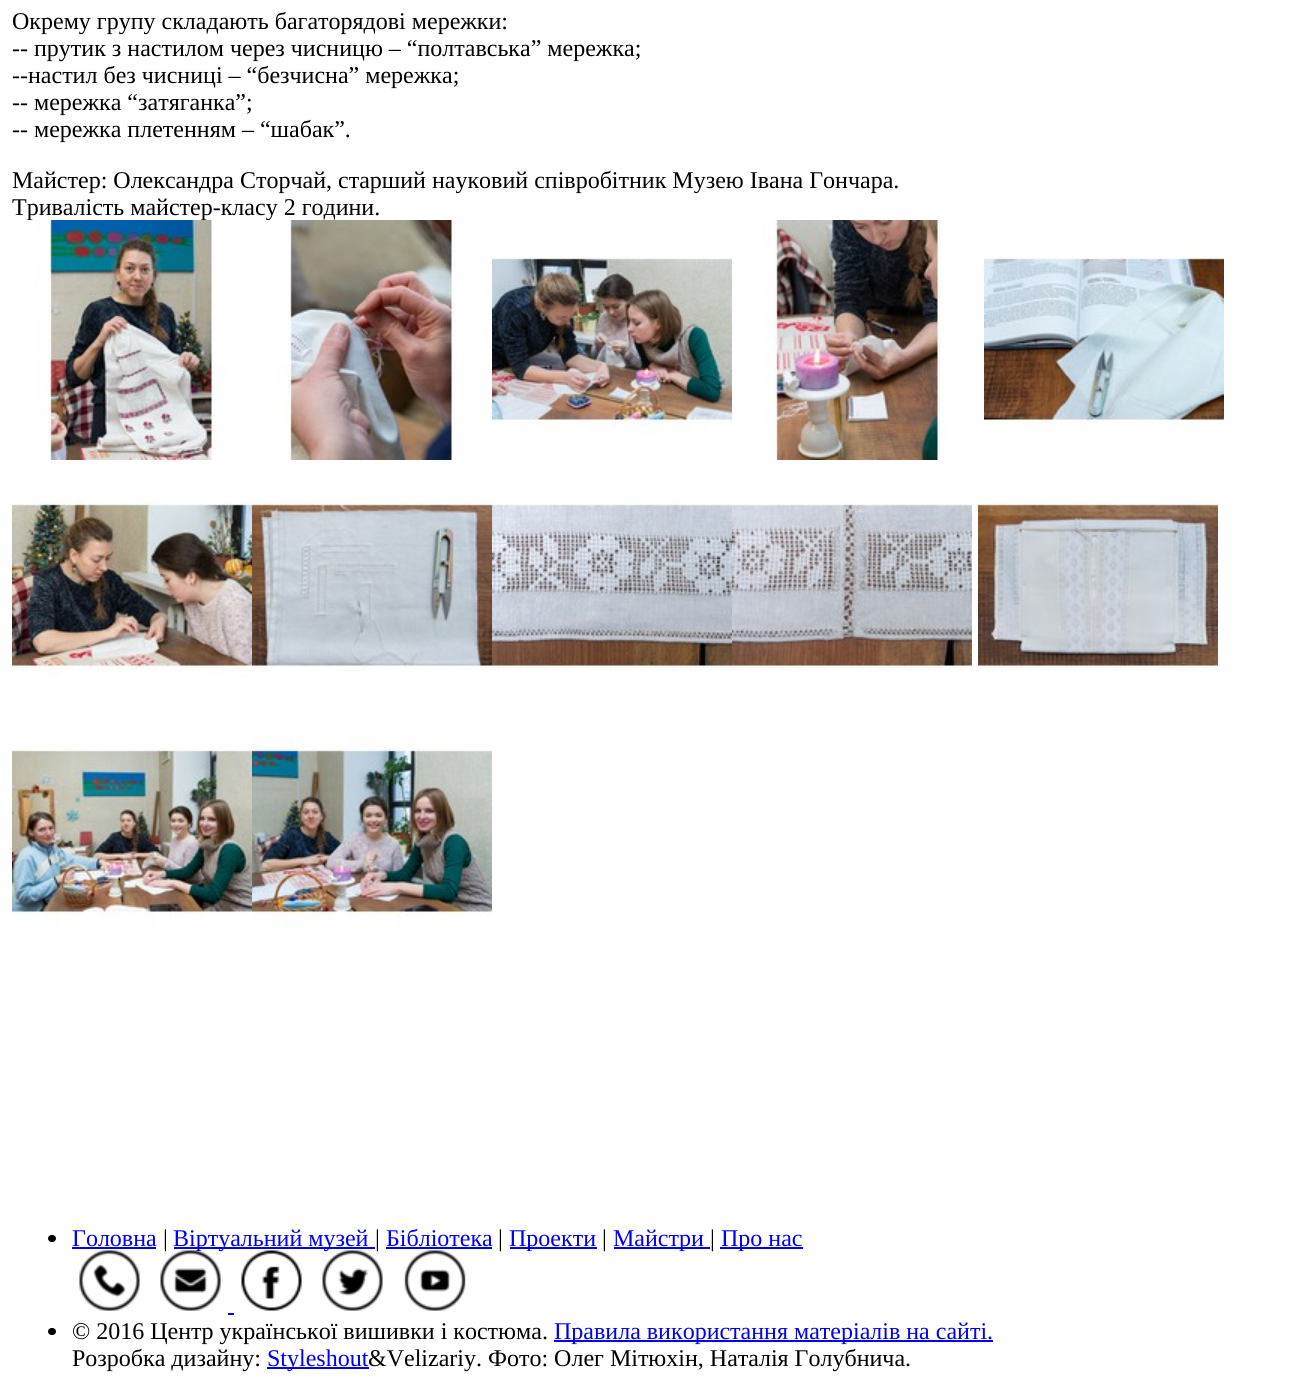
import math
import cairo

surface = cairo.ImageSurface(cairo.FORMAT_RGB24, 1304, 1395)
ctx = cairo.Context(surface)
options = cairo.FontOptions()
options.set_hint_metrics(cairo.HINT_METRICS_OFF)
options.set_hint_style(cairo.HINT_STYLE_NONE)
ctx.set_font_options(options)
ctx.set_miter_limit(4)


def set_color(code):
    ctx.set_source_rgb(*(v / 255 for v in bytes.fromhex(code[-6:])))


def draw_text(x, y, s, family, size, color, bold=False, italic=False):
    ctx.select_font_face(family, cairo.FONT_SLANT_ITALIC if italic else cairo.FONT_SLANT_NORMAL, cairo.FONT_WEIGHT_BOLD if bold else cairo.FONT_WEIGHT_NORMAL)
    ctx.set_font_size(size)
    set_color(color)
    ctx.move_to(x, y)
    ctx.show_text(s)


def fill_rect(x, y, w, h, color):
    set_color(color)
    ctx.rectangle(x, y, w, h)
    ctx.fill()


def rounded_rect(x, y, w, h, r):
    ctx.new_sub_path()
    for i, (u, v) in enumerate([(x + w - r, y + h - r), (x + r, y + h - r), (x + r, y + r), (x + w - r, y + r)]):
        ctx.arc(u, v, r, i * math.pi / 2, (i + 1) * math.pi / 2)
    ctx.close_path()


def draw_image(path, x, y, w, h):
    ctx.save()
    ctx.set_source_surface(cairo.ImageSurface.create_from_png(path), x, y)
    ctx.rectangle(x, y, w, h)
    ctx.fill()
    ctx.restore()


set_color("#ffffff")
ctx.paint()
draw_text(12, 29, "Окрему групу складають багаторядові мережки:", "Liberation Serif", 24, "#000000")
draw_text(12, 56, "-- прутик з настилом через чисницю – “полтавська” мережка;", "Liberation Serif", 24, "#000000")
draw_text(12, 83, "--настил без чисниці – “безчисна” мережка;", "Liberation Serif", 24, "#000000")
draw_text(12, 110, "-- мережка “затяганка”;", "Liberation Serif", 24, "#000000")
draw_text(12, 137, "-- мережка плетенням – “шабак”.", "Liberation Serif", 24, "#000000")
draw_text(12, 188, "Майстер: Олександра Сторчай, старший науковий співробітник Музею Івана Гончара.", "Liberation Serif", 24, "#000000")
draw_text(12, 215, "Тривалість майстер-класу 2 години.", "Liberation Serif", 24, "#000000")
draw_image("assets/img1.png", 27, 220, 201, 240)
draw_image("assets/img2.png", 266, 220, 190, 240)
draw_image("assets/img3.png", 492, 256, 240, 180)
draw_image("assets/img4.png", 762, 220, 186, 240)
draw_image("assets/img5.png", 984, 244, 240, 188)
draw_image("assets/img6.png", 12, 495, 240, 184)
draw_image("assets/img7.png", 252, 493, 240, 178)
draw_image("assets/img8.png", 492, 502, 240, 168)
draw_image("assets/img9.png", 732, 502, 240, 168)
draw_image("assets/img10.png", 978, 493, 240, 186)
draw_image("assets/img11.png", 12, 746, 240, 182)
draw_image("assets/img12.png", 252, 735, 240, 193)
rounded_rect(48, 1235, 8, 7, 3.5)
ctx.fill()
draw_text(72, 1246, "Головна", "Liberation Serif", 24, "#0000ee")
fill_rect(72, 1247, 84, 2, "#0000ee")
draw_text(163, 1246, "|", "Liberation Serif", 24, "#000000")
fill_rect(174, 1247, 201, 2, "#0000ee")
draw_text(173, 1246, "Віртуальний музей", "Liberation Serif", 24, "#0000ee")
draw_text(375, 1246, "|", "Liberation Serif", 24, "#000000")
draw_text(386, 1246, "Бібліотека", "Liberation Serif", 24, "#0000ee")
fill_rect(386, 1247, 106, 2, "#0000ee")
draw_text(498, 1246, "|", "Liberation Serif", 24, "#000000")
fill_rect(510, 1247, 87, 2, "#0000ee")
draw_text(509, 1246, "Проекти", "Liberation Serif", 24, "#0000ee")
draw_text(602, 1246, "|", "Liberation Serif", 24, "#000000")
fill_rect(614, 1247, 96, 2, "#0000ee")
draw_text(613, 1246, "Майстри", "Liberation Serif", 24, "#0000ee")
draw_text(710, 1246, "|", "Liberation Serif", 24, "#000000")
fill_rect(720, 1247, 83, 2, "#0000ee")
draw_text(721, 1246, "Про нас", "Liberation Serif", 24, "#0000ee")
draw_image("assets/img13.png", 79, 1250, 61, 61)
draw_image("assets/img14.png", 160, 1250, 61, 61)
draw_image("assets/img15.png", 241, 1250, 61, 61)
draw_image("assets/img16.png", 322, 1250, 61, 61)
draw_image("assets/img17.png", 404, 1250, 62, 61)
fill_rect(228, 1313, 6, 2, "#0000ee")
set_color("#000000")
rounded_rect(48, 1328, 8, 7, 3.5)
ctx.fill()
draw_text(72, 1339, "© 2016 Центр української вишивки і костюма.", "Liberation Serif", 24, "#000000")
fill_rect(554, 1340, 439, 2, "#0000ee")
draw_text(554, 1339, "Правила використання матеріалів на сайті.", "Liberation Serif", 24, "#0000ee")
draw_text(72, 1366, "Розробка дизайну:", "Liberation Serif", 24, "#000000")
fill_rect(267, 1367, 102, 2, "#0000ee")
draw_text(267, 1366, "Styleshout", "Liberation Serif", 24, "#0000ee")
draw_text(368, 1366, "&Velizariy. Фото: Олег Мітюхін, Наталія Голубнича.", "Liberation Serif", 24, "#000000")
surface.write_to_png("output.png")
